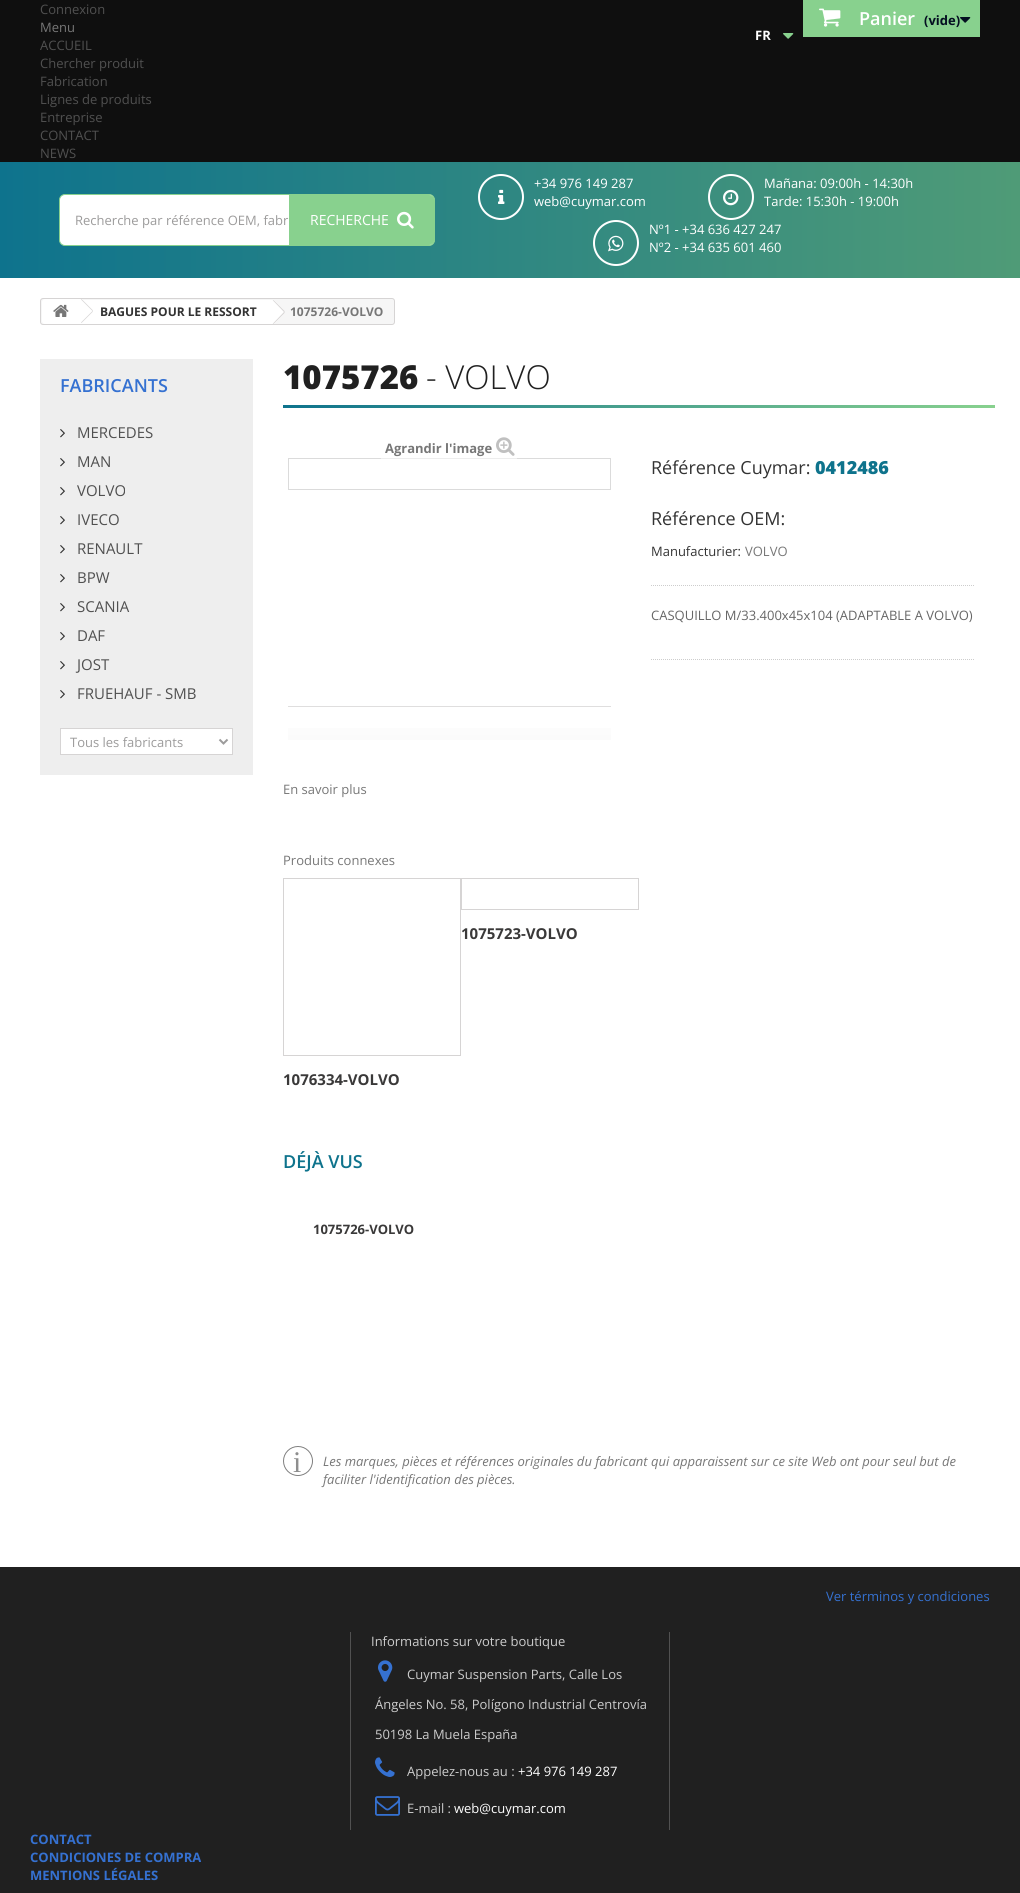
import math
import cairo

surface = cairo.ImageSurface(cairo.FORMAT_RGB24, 1020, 1893)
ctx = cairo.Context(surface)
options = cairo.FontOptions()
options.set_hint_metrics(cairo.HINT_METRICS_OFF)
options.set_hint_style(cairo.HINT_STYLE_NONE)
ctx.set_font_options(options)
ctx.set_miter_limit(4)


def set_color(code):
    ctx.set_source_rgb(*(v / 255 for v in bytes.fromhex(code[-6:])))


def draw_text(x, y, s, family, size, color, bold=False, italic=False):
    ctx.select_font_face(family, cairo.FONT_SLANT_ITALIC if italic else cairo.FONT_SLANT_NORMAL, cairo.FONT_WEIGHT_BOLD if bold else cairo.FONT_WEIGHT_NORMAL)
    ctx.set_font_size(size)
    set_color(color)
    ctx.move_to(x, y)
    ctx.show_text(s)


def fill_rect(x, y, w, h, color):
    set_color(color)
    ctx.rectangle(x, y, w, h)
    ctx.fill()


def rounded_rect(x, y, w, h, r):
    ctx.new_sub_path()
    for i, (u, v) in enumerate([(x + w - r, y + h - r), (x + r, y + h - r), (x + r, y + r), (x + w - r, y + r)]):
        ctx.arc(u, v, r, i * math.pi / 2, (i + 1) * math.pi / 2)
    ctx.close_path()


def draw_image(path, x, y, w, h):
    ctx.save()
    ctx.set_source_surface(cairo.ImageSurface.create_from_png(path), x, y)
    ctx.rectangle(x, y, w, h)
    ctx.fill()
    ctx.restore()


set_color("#ffffff")
ctx.paint()
fill_rect(0, 0, 1020, 162, "#0f0f0f")
draw_text(40, 14, "Connexion", "Open Sans", 13, "#505050")
fill_rect(803, 0, 177, 37, "#88d18e")
draw_image("assets/img1.png", 819, 8, 22, 19)
draw_text(859, 25, "Panier", "Open Sans SemiBold", 18, "#ffffff")
draw_text(924, 25, "(vide)", "Open Sans", 13, "#040f21", bold=True)
draw_image("assets/img2.png", 960, 17, 11, 6)
draw_text(40, 32, "Menu", "Open Sans", 13, "#777777")
draw_text(40, 50, "ACCUEIL", "Open Sans", 13, "#505050")
draw_text(40, 68, "Chercher produit", "Open Sans", 13, "#505050")
draw_text(40, 86, "Fabrication", "Open Sans", 13, "#505050")
draw_text(40, 104, "Lignes de produits", "Open Sans", 13, "#505050")
draw_text(40, 122, "Entreprise", "Open Sans", 13, "#505050")
draw_text(40, 140, "CONTACT", "Open Sans", 13, "#505050")
draw_text(40, 158, "NEWS", "Open Sans", 13, "#505050")
draw_text(755, 40, "FR", "Open Sans", 13, "#ffffff", bold=True)
draw_image("assets/img3.png", 783, 33, 11, 6)
gradient = cairo.LinearGradient(0, 220, 1020, 220)
gradient.add_color_stop_rgba(0, 0.055, 0.451, 0.553, 1)
gradient.add_color_stop_rgba(1, 0.31, 0.608, 0.467, 1)
ctx.set_source(gradient)
ctx.rectangle(0, 162, 1020, 116)
ctx.fill()
set_color("#ffffff")
rounded_rect(59.5, 194.5, 375, 51, 5.5)
ctx.fill_preserve()
set_color("#88d18e")
ctx.set_line_width(1)
ctx.stroke()
draw_text(75, 225, "Recherche par référence OEM, fabr", "Open Sans", 13, "#9c9b9b")
set_color("#88d18e")
ctx.new_path()
ctx.move_to(289.5, 195.5)
ctx.line_to(429, 195.5)
ctx.curve_to(432, 195.5, 434.5, 198, 434.5, 201)
ctx.line_to(434.5, 239)
ctx.curve_to(434.5, 242, 432, 244.5, 429, 244.5)
ctx.line_to(289.5, 244.5)
ctx.close_path()
ctx.fill_preserve()
ctx.stroke()
draw_text(310, 225, "RECHERCHE", "Open Sans", 14, "#ffffff")
draw_image("assets/img4.png", 397, 211, 17, 18)
ctx.arc(501, 197, 22, 0, 2 * math.pi)
ctx.set_line_width(2)
ctx.stroke()
draw_image("assets/img5.png", 498, 189, 7, 15)
draw_text(534, 188, "+34 976 149 287", "Open Sans", 13, "#ffffff")
draw_text(534, 206, "web@cuymar.com", "Open Sans", 13, "#ffffff")
ctx.new_path()
ctx.arc(731, 197, 22, 0, 2 * math.pi)
ctx.stroke()
draw_image("assets/img6.png", 723, 189, 16, 17)
draw_text(764, 188, "Mañana: 09:00h - 14:30h", "Open Sans", 13, "#ffffff")
draw_text(764, 206, "Tarde: 15:30h - 19:00h", "Open Sans", 13, "#ffffff")
ctx.new_path()
ctx.arc(616, 243, 22, 0, 2 * math.pi)
ctx.stroke()
draw_image("assets/img7.png", 608, 235, 16, 17)
draw_text(649, 234, "Nº1 - +34 636 427 247", "Open Sans", 13, "#ffffff")
draw_text(649, 252, "Nº2 - +34 635 601 460", "Open Sans", 13, "#ffffff")
set_color("#f6f6f6")
rounded_rect(40.5, 298.5, 354, 26, 2.5)
ctx.fill_preserve()
set_color("#d6d4d4")
ctx.set_line_width(1)
ctx.stroke()
set_color("#ffffff")
ctx.new_path()
ctx.move_to(45, 299)
ctx.line_to(80, 299)
ctx.line_to(80, 324)
ctx.line_to(45, 324)
ctx.curve_to(43.5, 324, 42, 322.5, 42, 321)
ctx.line_to(42, 302)
ctx.curve_to(42, 300.5, 43.5, 299, 45, 299)
ctx.close_path()
ctx.fill()
draw_image("assets/img8.png", 53, 304, 16, 13)
fill_rect(80, 300, 192, 24, "#ffffff")
ctx.new_path()
ctx.move_to(82.5, 299.5)
ctx.line_to(92.5, 309.5)
ctx.curve_to(93, 310.5, 93, 311.5, 92.5, 312.5)
ctx.line_to(82.5, 322.5)
ctx.curve_to(81.5, 323, 80.5, 323, 79.5, 322.5)
ctx.line_to(69.5, 312.5)
ctx.curve_to(69, 311.5, 69, 310.5, 69.5, 309.5)
ctx.line_to(79.5, 299.5)
ctx.curve_to(80.5, 299, 81.5, 299, 82.5, 299.5)
ctx.close_path()
ctx.fill()
set_color("#d6d4d4")
ctx.new_path()
ctx.move_to(81.5, 299)
ctx.line_to(93, 310.5)
ctx.line_to(92.5, 311)
ctx.line_to(81, 299.5)
ctx.close_path()
ctx.move_to(92.5, 311)
ctx.line_to(93, 311.5)
ctx.line_to(81.5, 323)
ctx.line_to(81, 322.5)
ctx.close_path()
ctx.fill()
draw_text(100, 316, "BAGUES POUR LE RESSORT", "Open Sans", 12, "#333333", bold=True)
set_color("#ffffff")
ctx.new_path()
ctx.move_to(274.5, 300.5)
ctx.line_to(284, 310.5)
ctx.curve_to(285, 311.5, 285, 312.5, 284, 313.5)
ctx.line_to(274.5, 323.5)
ctx.curve_to(273.5, 324, 272.5, 324, 271.5, 323.5)
ctx.line_to(261.5, 313.5)
ctx.curve_to(261, 312.5, 261, 311.5, 261.5, 310.5)
ctx.line_to(271.5, 300.5)
ctx.curve_to(272.5, 300, 273.5, 300, 274.5, 300.5)
ctx.close_path()
ctx.fill()
set_color("#d6d4d4")
ctx.new_path()
ctx.move_to(273.5, 300)
ctx.line_to(285, 311.5)
ctx.line_to(284, 312)
ctx.line_to(273, 300.5)
ctx.close_path()
ctx.move_to(284, 312)
ctx.line_to(285, 312.5)
ctx.line_to(273.5, 324)
ctx.line_to(273, 323.5)
ctx.close_path()
ctx.fill()
draw_text(290, 316, "1075726-VOLVO", "Open Sans", 12, "#777777", bold=True)
fill_rect(40, 359, 213, 416, "#eeeeee")
draw_text(60, 392, "FABRICANTS", "Open Sans SemiBold", 18, "#3571d1")
draw_image("assets/img9.png", 60, 429, 5, 9)
draw_text(77, 438, "MERCEDES", "Open Sans", 15, "#505050")
draw_image("assets/img9.png", 60, 458, 5, 9)
draw_text(77, 467, "MAN", "Open Sans", 15, "#505050")
draw_image("assets/img9.png", 60, 487, 5, 9)
draw_text(77, 496, "VOLVO", "Open Sans", 15, "#505050")
draw_image("assets/img9.png", 60, 516, 5, 9)
draw_text(77, 525, "IVECO", "Open Sans", 15, "#505050")
draw_image("assets/img9.png", 60, 545, 5, 9)
draw_text(77, 554, "RENAULT", "Open Sans", 15, "#505050")
draw_image("assets/img9.png", 60, 574, 5, 9)
draw_text(77, 583, "BPW", "Open Sans", 15, "#505050")
draw_image("assets/img9.png", 60, 603, 5, 9)
draw_text(77, 612, "SCANIA", "Open Sans", 15, "#505050")
draw_image("assets/img9.png", 60, 632, 5, 9)
draw_text(77, 641, "DAF", "Open Sans", 15, "#505050")
draw_image("assets/img9.png", 60, 661, 5, 9)
draw_text(77, 670, "JOST", "Open Sans", 15, "#505050")
draw_image("assets/img9.png", 60, 690, 5, 9)
draw_text(77, 699, "FRUEHAUF - SMB", "Open Sans", 15, "#505050")
set_color("#ffffff")
ctx.rectangle(60.5, 728.5, 172, 26)
ctx.fill_preserve()
set_color("#d6d4d4")
ctx.stroke()
ctx.new_path()
ctx.move_to(219.5, 739.5)
ctx.line_to(223.5, 743.5)
ctx.line_to(227.5, 739.5)
set_color("#9c9b9b")
ctx.set_line_width(2)
ctx.stroke()
draw_text(70, 747, "Tous les fabricants", "Open Sans", 13, "#9c9b9b")
draw_image("assets/img10.png", 283, 405, 712, 3)
draw_text(283, 389, "1075726", "Open Sans ExtraBold", 33, "#202020")
draw_text(426, 389, "- VOLVO", "Open Sans Light", 33, "#202020")
ctx.rectangle(288.5, 458.5, 322, 31)
set_color("#dbdbdb")
ctx.set_line_width(1)
ctx.stroke()
ctx.set_source_rgba(1, 1, 1, 0.5)
ctx.rectangle(381, 458, 136, 1)
ctx.fill()
draw_text(385, 453, "Agrandir l'image", "Open Sans", 13, "#777777", bold=True)
draw_image("assets/img11.png", 496, 437, 19, 19)
draw_text(651, 474, "Référence Cuymar:", "Open Sans", 18, "#333333")
draw_text(815, 474, "0412486", "Open Sans ExtraBold", 18, "#0e738c")
draw_text(651, 525, "Référence OEM:", "Open Sans", 18, "#333333")
draw_text(651, 556, "Manufacturier:", "Open Sans", 13, "#333333")
draw_text(745, 556, "VOLVO", "Open Sans", 13, "#777777")
ctx.new_path()
ctx.move_to(651, 585.5)
ctx.line_to(975, 585.5)
set_color("#cdcdcd")
ctx.set_dash([1, 1])
ctx.stroke()
ctx.new_path()
ctx.move_to(651, 659.5)
ctx.line_to(975, 659.5)
ctx.stroke()
draw_text(651, 620, "CASQUILLO M/33.400x45x104 (ADAPTABLE A VOLVO)", "Open Sans", 13, "#666666")
gradient = cairo.LinearGradient(450, 707, 450, 740)
gradient.add_color_stop_rgba(0, 1, 1, 1, 1)
gradient.add_color_stop_rgba(1, 0.984, 0.984, 0.984, 1)
ctx.set_source(gradient)
ctx.rectangle(288, 728, 323, 12)
ctx.fill()
fill_rect(288, 706, 323, 1, "#dfdede")
draw_text(283, 794, "En savoir plus", "Open Sans", 13, "#777777")
draw_text(283, 865, "Produits connexes", "Open Sans", 13, "#777777")
ctx.rectangle(461.5, 878.5, 177, 31)
set_color("#d6d4d4")
ctx.set_dash([])
ctx.stroke()
draw_text(461, 939, "1075723-VOLVO", "Open Sans", 15, "#3a3939", bold=True)
ctx.rectangle(283.5, 878.5, 177, 177)
set_color("#d6d4d4")
ctx.stroke()
draw_text(283, 1085, "1076334-VOLVO", "Open Sans", 15, "#3a3939", bold=True)
draw_text(283, 1168, "DÉJÀ VUS", "Open Sans SemiBold", 18, "#0e738c")
draw_text(313, 1234, "1075726-VOLVO", "Open Sans", 13, "#3a3939", bold=True)
ctx.new_path()
ctx.arc(298, 1461, 14.5, 0, 2 * math.pi)
set_color("#808080")
ctx.stroke()
draw_text(293, 1472, "i", "Liberation Serif", 30, "#8e8e8e")
draw_text(323, 1466, "Les marques, pièces et références originales du fabricant qui apparaissent sur ce site Web ont pour seul but de", "Open Sans", 13, "#777777", italic=True)
draw_text(323, 1484, "faciliter l'identification des pièces.", "Open Sans", 13, "#777777", italic=True)
fill_rect(0, 1567, 1020, 326, "#202020")
draw_text(826, 1601, "Ver términos y condiciones", "Open Sans", 13, "#3571d1")
fill_rect(669, 1632, 1, 198, "#515151")
fill_rect(350, 1632, 1, 198, "#515151")
draw_text(371, 1646, "Informations sur votre boutique", "Open Sans", 13, "#cccccc")
draw_image("assets/img12.png", 378, 1660, 15, 22)
draw_text(407, 1679, "Cuymar Suspension Parts, Calle Los", "Open Sans", 13, "#cccccc")
draw_text(375, 1709, "Ángeles No. 58, Polígono Industrial Centrovía", "Open Sans", 13, "#cccccc")
draw_text(375, 1739, "50198 La Muela España", "Open Sans", 13, "#cccccc")
draw_image("assets/img13.png", 375, 1757, 20, 20)
draw_text(407, 1776, "Appelez-nous au :", "Open Sans", 13, "#cccccc")
draw_text(518, 1776, "+34 976 149 287", "Open Sans", 13, "#ffffff")
draw_image("assets/img14.png", 375, 1796, 25, 20)
draw_text(407, 1813, "E-mail :", "Open Sans", 13, "#cccccc")
draw_text(454, 1813, "web@cuymar.com", "Open Sans", 13, "#ffffff")
draw_text(30, 1844, "CONTACT", "Open Sans", 13, "#3571d1", bold=True)
draw_text(30, 1862, "CONDICIONES DE COMPRA", "Open Sans", 13, "#3571d1", bold=True)
draw_text(30, 1880, "MENTIONS LÉGALES", "Open Sans", 13, "#3571d1", bold=True)
surface.write_to_png("output.png")
